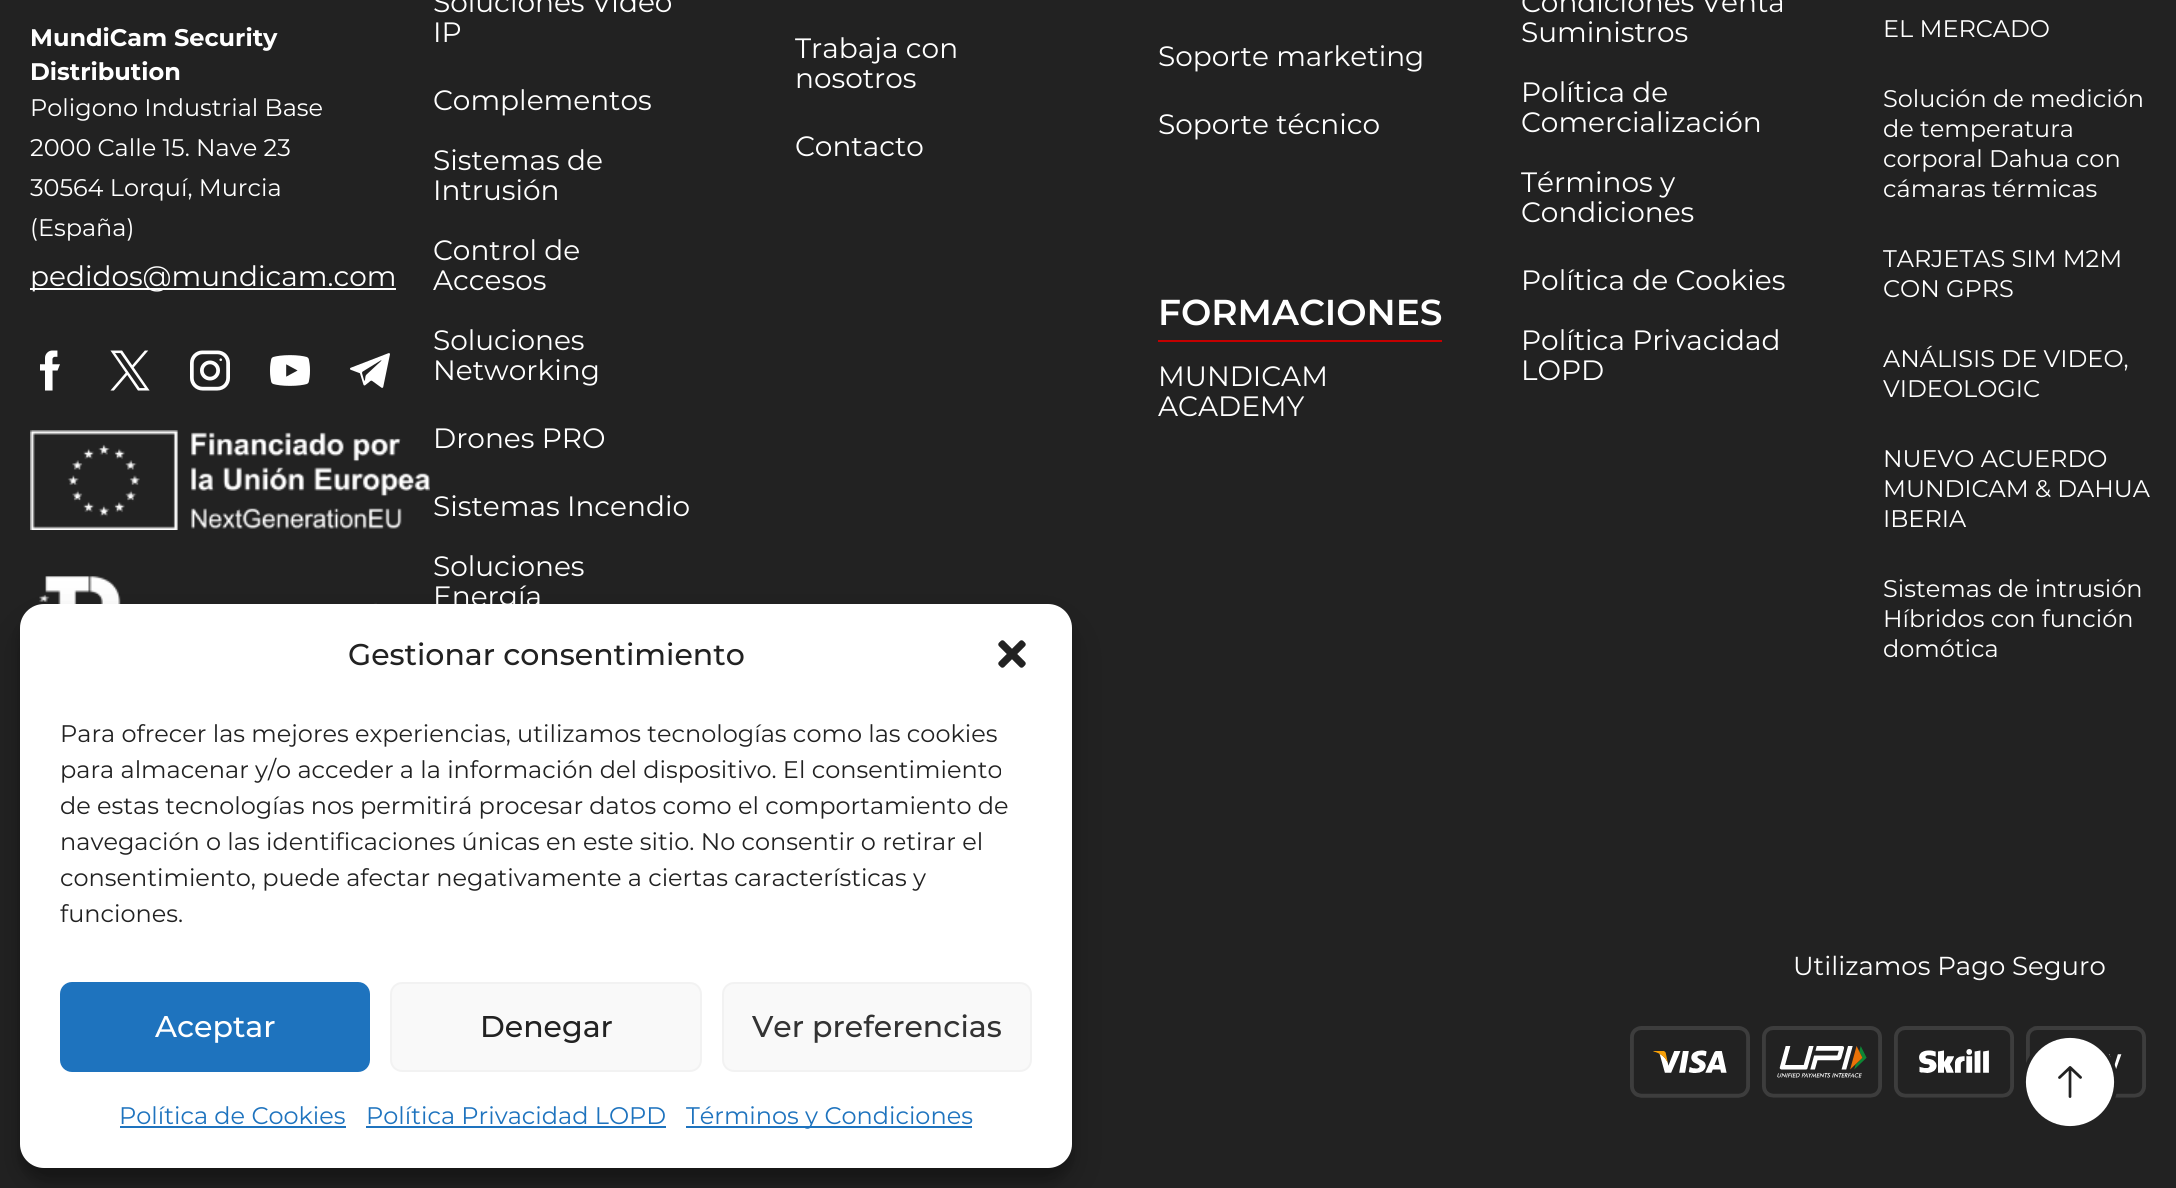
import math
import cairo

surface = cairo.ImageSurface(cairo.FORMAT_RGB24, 2176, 1188)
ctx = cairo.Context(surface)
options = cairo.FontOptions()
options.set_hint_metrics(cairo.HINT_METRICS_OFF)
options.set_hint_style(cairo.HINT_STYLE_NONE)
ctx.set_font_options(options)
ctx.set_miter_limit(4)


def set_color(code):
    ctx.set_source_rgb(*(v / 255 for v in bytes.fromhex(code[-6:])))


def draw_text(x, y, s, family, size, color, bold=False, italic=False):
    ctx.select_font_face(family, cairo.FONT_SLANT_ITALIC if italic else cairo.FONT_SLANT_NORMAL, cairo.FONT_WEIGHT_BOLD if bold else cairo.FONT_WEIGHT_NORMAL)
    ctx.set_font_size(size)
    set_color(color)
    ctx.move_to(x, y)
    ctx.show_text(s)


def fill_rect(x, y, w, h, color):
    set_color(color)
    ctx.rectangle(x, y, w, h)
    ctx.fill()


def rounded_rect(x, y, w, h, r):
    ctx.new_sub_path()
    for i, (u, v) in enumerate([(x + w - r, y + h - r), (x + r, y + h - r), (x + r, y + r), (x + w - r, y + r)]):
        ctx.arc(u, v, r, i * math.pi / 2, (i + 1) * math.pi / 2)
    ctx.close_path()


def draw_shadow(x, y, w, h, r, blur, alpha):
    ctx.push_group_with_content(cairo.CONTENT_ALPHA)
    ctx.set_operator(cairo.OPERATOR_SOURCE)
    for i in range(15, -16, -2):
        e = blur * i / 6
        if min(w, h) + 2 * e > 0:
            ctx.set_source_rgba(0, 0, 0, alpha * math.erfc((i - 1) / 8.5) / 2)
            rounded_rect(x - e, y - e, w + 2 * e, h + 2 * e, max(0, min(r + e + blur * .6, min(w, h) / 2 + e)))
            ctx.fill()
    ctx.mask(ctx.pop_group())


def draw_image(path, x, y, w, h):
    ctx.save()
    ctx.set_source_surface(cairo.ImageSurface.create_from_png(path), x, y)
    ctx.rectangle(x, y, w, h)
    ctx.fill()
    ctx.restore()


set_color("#222222")
ctx.paint()
draw_text(30, 46, "MundiCam Security", "Montserrat", 24, "#ffffff", bold=True)
draw_text(30, 80, "Distribution", "Montserrat", 24, "#ffffff", bold=True)
draw_text(30, 116, "Poligono Industrial Base", "Montserrat", 24, "#ffffff")
draw_text(30, 156, "2000 Calle 15. Nave 23", "Montserrat", 24, "#ffffff")
draw_text(30, 196, "30564 Lorquí, Murcia", "Montserrat", 24, "#ffffff")
draw_text(30, 236, "(España)", "Montserrat", 24, "#ffffff")
fill_rect(30, 288, 366, 2, "#ffffff")
draw_text(30, 286, "pedidos@mundicam.com", "Montserrat", 28, "#ffffff")
draw_image("assets/img1.png", 40, 350, 20, 41)
draw_image("assets/img2.png", 110, 350, 40, 41)
draw_image("assets/img3.png", 190, 350, 40, 41)
draw_image("assets/img4.png", 270, 355, 40, 31)
draw_image("assets/img5.png", 350, 353, 40, 35)
draw_image("assets/img6.png", 30, 430, 400, 100)
draw_image("assets/img7.png", 39, 576, 338, 28)
draw_text(433, 12, "Soluciones Video", "Montserrat", 28, "#ffffff")
draw_text(433, 42, "IP", "Montserrat", 28, "#ffffff")
draw_text(433, 110, "Complementos", "Montserrat", 28, "#ffffff")
draw_text(433, 170, "Sistemas de", "Montserrat", 28, "#ffffff")
draw_text(433, 200, "Intrusión", "Montserrat", 28, "#ffffff")
draw_text(433, 260, "Control de", "Montserrat", 28, "#ffffff")
draw_text(433, 290, "Accesos", "Montserrat", 28, "#ffffff")
draw_text(433, 350, "Soluciones", "Montserrat", 28, "#ffffff")
draw_text(433, 380, "Networking", "Montserrat", 28, "#ffffff")
draw_text(433, 448, "Drones PRO", "Montserrat", 28, "#ffffff")
draw_text(433, 516, "Sistemas Incendio", "Montserrat", 28, "#ffffff")
draw_text(433, 576, "Soluciones", "Montserrat", 28, "#ffffff")
draw_text(433, 606, "Energía", "Montserrat", 28, "#ffffff")
draw_text(795, 58, "Trabaja con", "Montserrat", 28, "#ffffff")
draw_text(795, 88, "nosotros", "Montserrat", 28, "#ffffff")
draw_text(795, 156, "Contacto", "Montserrat", 28, "#ffffff")
draw_text(1158, 66, "Soporte marketing", "Montserrat", 28, "#ffffff")
draw_text(1158, 134, "Soporte técnico", "Montserrat", 28, "#ffffff")
fill_rect(1158, 340, 284, 2, "#c40000")
draw_text(1158, 325, "FORMACIONES", "Montserrat SemiBold", 36, "#ffffff")
draw_text(1158, 386, "MUNDICAM", "Montserrat", 28, "#ffffff")
draw_text(1158, 416, "ACADEMY", "Montserrat", 28, "#ffffff")
draw_text(1521, 12, "Condiciones Venta", "Montserrat", 28, "#ffffff")
draw_text(1521, 42, "Suministros", "Montserrat", 28, "#ffffff")
draw_text(1521, 102, "Política de", "Montserrat", 28, "#ffffff")
draw_text(1521, 132, "Comercialización", "Montserrat", 28, "#ffffff")
draw_text(1521, 192, "Términos y", "Montserrat", 28, "#ffffff")
draw_text(1521, 222, "Condiciones", "Montserrat", 28, "#ffffff")
draw_text(1521, 290, "Política de Cookies", "Montserrat", 28, "#ffffff")
draw_text(1521, 350, "Política Privacidad", "Montserrat", 28, "#ffffff")
draw_text(1521, 380, "LOPD", "Montserrat", 28, "#ffffff")
draw_text(1883, 37, "EL MERCADO", "Montserrat", 24, "#ffffff")
draw_text(1883, 107, "Solución de medición", "Montserrat", 24, "#ffffff")
draw_text(1883, 137, "de temperatura", "Montserrat", 24, "#ffffff")
draw_text(1883, 167, "corporal Dahua con", "Montserrat", 24, "#ffffff")
draw_text(1883, 197, "cámaras térmicas", "Montserrat", 24, "#ffffff")
draw_text(1883, 267, "TARJETAS SIM M2M", "Montserrat", 24, "#ffffff")
draw_text(1883, 297, "CON GPRS", "Montserrat", 24, "#ffffff")
draw_text(1883, 367, "ANÁLISIS DE VIDEO,", "Montserrat", 24, "#ffffff")
draw_text(1883, 397, "VIDEOLOGIC", "Montserrat", 24, "#ffffff")
draw_text(1883, 467, "NUEVO ACUERDO", "Montserrat", 24, "#ffffff")
draw_text(1883, 497, "MUNDICAM & DAHUA", "Montserrat", 24, "#ffffff")
draw_text(1883, 527, "IBERIA", "Montserrat", 24, "#ffffff")
draw_text(1883, 597, "Sistemas de intrusión", "Montserrat", 24, "#ffffff")
draw_text(1883, 627, "Híbridos con función", "Montserrat", 24, "#ffffff")
draw_text(1883, 657, "domótica", "Montserrat", 24, "#ffffff")
draw_text(1793, 975, "Utilizamos Pago Seguro", "Montserrat", 26, "#ffffff")
draw_image("assets/img8.png", 1630, 1026, 516, 72)
set_color("#000000")
draw_shadow(20, 616, 1052, 564, 24, 6, 0.23)
draw_shadow(20, 624, 1052, 564, 24, 20, 0.19)
set_color("#ffffff")
rounded_rect(20, 604, 1052, 564, 24)
ctx.fill()
draw_text(348, 665, "Gestionar consentimiento", "Montserrat Medium", 30, "#222222")
draw_image("assets/img9.png", 998, 640, 28, 28)
draw_text(60, 742, "Para ofrecer las mejores experiencias, utilizamos tecnologías como las cookies", "Montserrat", 24, "#222222")
draw_text(60, 778, "para almacenar y/o acceder a la información del dispositivo. El consentimiento", "Montserrat", 24, "#222222")
draw_text(60, 814, "de estas tecnologías nos permitirá procesar datos como el comportamiento de", "Montserrat", 24, "#222222")
draw_text(60, 850, "navegación o las identificaciones únicas en este sitio. No consentir o retirar el", "Montserrat", 24, "#222222")
draw_text(60, 886, "consentimiento, puede afectar negativamente a ciertas características y", "Montserrat", 24, "#222222")
draw_text(60, 922, "funciones.", "Montserrat", 24, "#222222")
set_color("#1e73be")
rounded_rect(61, 983, 308, 88, 11)
ctx.fill_preserve()
ctx.stroke()
draw_text(155, 1037, "Aceptar", "Montserrat Medium", 30, "#ffffff")
set_color("#f9f9f9")
rounded_rect(391, 983, 310, 88, 11)
ctx.fill_preserve()
set_color("#f2f2f2")
ctx.stroke()
draw_text(480, 1037, "Denegar", "Montserrat Medium", 30, "#222222")
set_color("#f9f9f9")
rounded_rect(723, 983, 308, 88, 11)
ctx.fill_preserve()
set_color("#f2f2f2")
ctx.stroke()
draw_text(752, 1037, "Ver preferencias", "Montserrat Medium", 30, "#333333")
draw_text(119, 1124, "Política de Cookies", "Montserrat", 24, "#1e73be")
fill_rect(120, 1126, 226, 2, "#1e73be")
draw_text(366, 1124, "Política Privacidad LOPD", "Montserrat", 24, "#1e73be")
fill_rect(366, 1126, 300, 2, "#1e73be")
fill_rect(686, 1126, 286, 2, "#1e73be")
draw_text(686, 1124, "Términos y Condiciones", "Montserrat", 24, "#1e73be")
set_color("#ffffff")
ctx.new_path()
ctx.arc(2070, 1082, 45, 0, 2 * math.pi)
ctx.fill_preserve()
set_color("#e1e1e1")
ctx.stroke()
ctx.new_path()
ctx.move_to(2070, 1036)
ctx.curve_to(2095.5, 1036, 2116, 1056.5, 2116, 1082)
ctx.curve_to(2116, 1107.5, 2095.5, 1128, 2070, 1128)
ctx.curve_to(2044.5, 1128, 2024, 1107.5, 2024, 1082)
ctx.curve_to(2024, 1056.5, 2044.5, 1036, 2070, 1036)
set_color("#222222")
ctx.set_line_width(3.8)
ctx.stroke()
draw_image("assets/img10.png", 2058, 1066, 24, 32)
surface.write_to_png("output.png")
